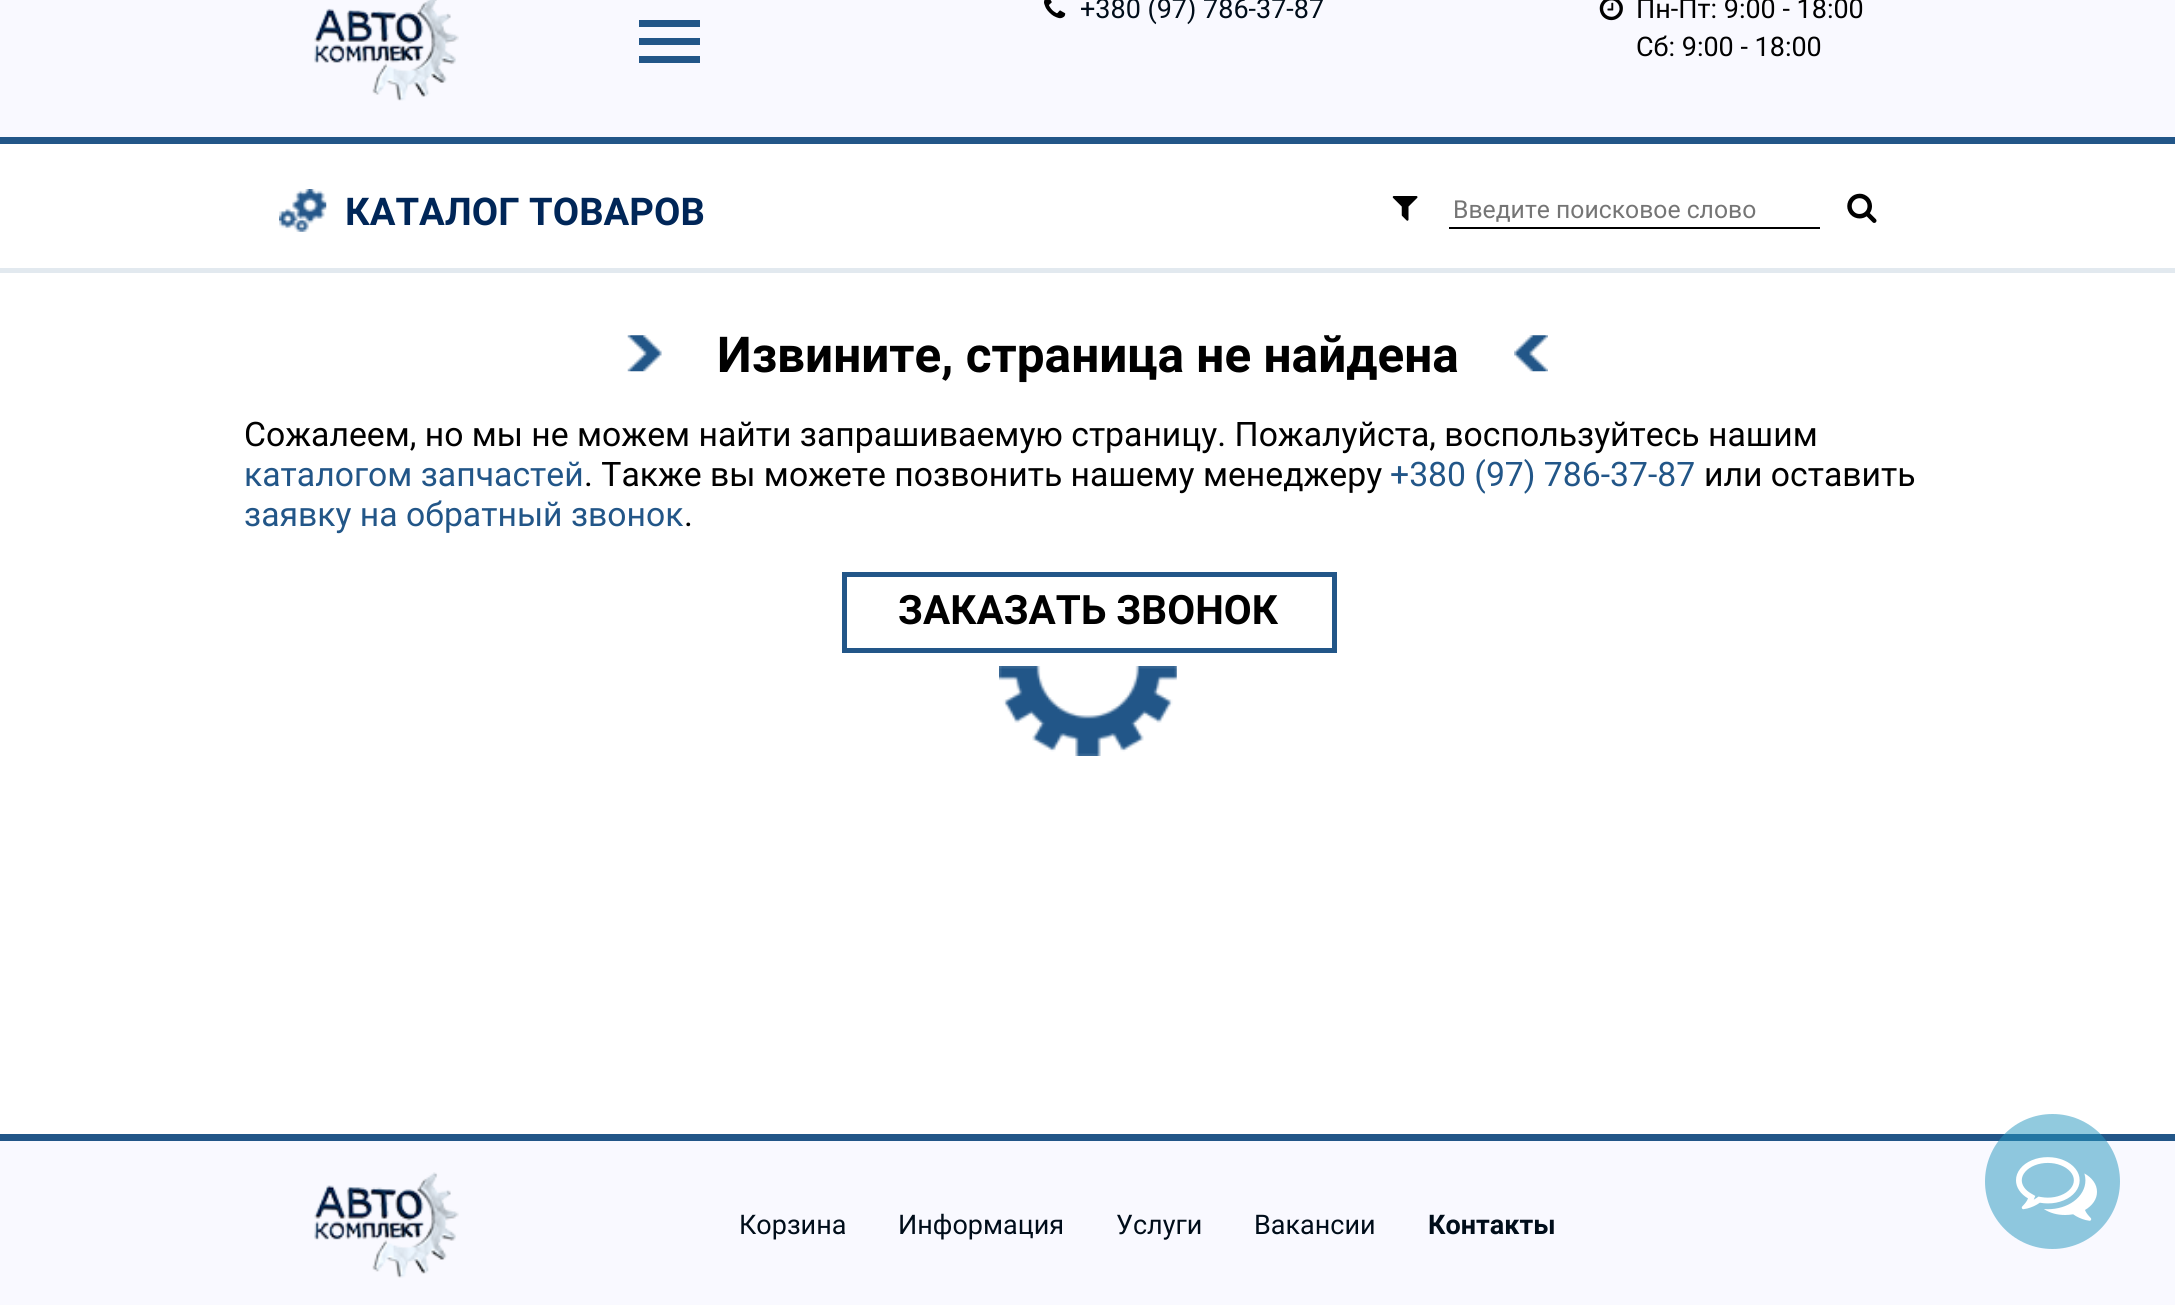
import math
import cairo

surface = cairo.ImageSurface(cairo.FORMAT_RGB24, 2175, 1305)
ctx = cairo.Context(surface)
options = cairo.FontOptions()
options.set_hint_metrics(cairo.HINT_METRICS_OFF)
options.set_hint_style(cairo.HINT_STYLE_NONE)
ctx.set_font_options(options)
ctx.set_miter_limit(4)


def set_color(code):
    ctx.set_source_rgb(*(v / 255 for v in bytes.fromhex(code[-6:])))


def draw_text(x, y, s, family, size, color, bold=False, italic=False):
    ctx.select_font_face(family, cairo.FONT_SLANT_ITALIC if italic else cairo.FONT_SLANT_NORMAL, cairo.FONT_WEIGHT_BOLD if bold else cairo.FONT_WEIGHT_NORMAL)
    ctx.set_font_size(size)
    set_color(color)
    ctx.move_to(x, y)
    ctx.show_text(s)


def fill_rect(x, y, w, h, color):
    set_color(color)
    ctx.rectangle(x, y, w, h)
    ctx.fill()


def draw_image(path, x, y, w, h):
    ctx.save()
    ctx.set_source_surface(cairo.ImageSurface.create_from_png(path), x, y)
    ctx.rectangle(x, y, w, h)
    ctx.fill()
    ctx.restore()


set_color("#ffffff")
ctx.paint()
fill_rect(0, 0, 2175, 137, "#f9f9ff")
fill_rect(0, 137, 2175, 7, "#225688")
draw_image("assets/img1.png", 314, 0, 145, 101)
fill_rect(639, 20, 61, 7, "#225688")
fill_rect(639, 38, 61, 7, "#225688")
fill_rect(639, 56, 61, 7, "#225688")
draw_image("assets/img2.png", 1044, 0, 22, 19)
draw_text(1080, 18, "+380 (97) 786-37-87", "Roboto", 27, "#000d1a")
draw_image("assets/img3.png", 1599, 0, 24, 21)
draw_text(1636, 18, "Пн-Пт: 9:00 - 18:00", "Roboto", 27, "#000000")
draw_text(1636, 56, "Сб: 9:00 - 18:00", "Roboto", 27, "#000000")
fill_rect(0, 268, 2175, 5, "#e2e9ef")
draw_image("assets/img4.png", 279, 189, 48, 43)
draw_text(345, 225, "КАТАЛОГ ТОВАРОВ", "Roboto", 38.25, "#002658", bold=True)
draw_image("assets/img5.png", 1392, 196, 26, 25)
fill_rect(1449, 227, 371, 2, "#000000")
draw_text(1453, 218, "Введите поисковое слово", "Roboto", 24.75, "#757575")
draw_image("assets/img6.png", 1847, 193, 30, 30)
draw_image("assets/img7.png", 627, 335, 35, 37)
draw_text(717, 372, "Извините, страница не найдена", "Roboto", 49.5, "#000000", bold=True)
draw_image("assets/img8.png", 1514, 335, 34, 37)
draw_text(244, 446, "Сожалеем, но мы не можем найти запрашиваемую страницу. Пожалуйста, воспользуйтесь нашим", "Roboto", 33.75, "#000000")
draw_text(244, 486, "каталогом запчастей", "Roboto", 33.75, "#225688")
draw_text(584, 486, ". Также вы можете позвонить нашему менеджеру", "Roboto", 33.75, "#000000")
draw_text(1390, 486, "+380 (97) 786-37-87", "Roboto", 33.75, "#225688")
draw_text(1704, 486, "или оставить", "Roboto", 33.75, "#000000")
draw_text(244, 526, "заявку на обратный звонок", "Roboto", 33.75, "#225688")
draw_text(684, 526, ".", "Roboto", 33.75, "#000000")
ctx.rectangle(844.5, 574.5, 490, 76)
set_color("#225688")
ctx.set_line_width(5)
ctx.stroke()
draw_text(898, 624, "ЗАКАЗАТЬ ЗВОНОК", "Roboto", 40.5, "#000000", bold=True)
draw_image("assets/img9.png", 999, 666, 178, 90)
fill_rect(0, 1141, 2175, 164, "#f9f9ff")
fill_rect(0, 1134, 2175, 7, "#225688")
draw_image("assets/img10.png", 314, 1172, 145, 106)
draw_text(739, 1234, "Корзина", "Roboto", 27, "#000d1a")
draw_text(898, 1234, "Информация", "Roboto", 27, "#000d1a")
draw_text(1116, 1234, "Услуги", "Roboto", 27, "#000d1a")
draw_text(1254, 1234, "Вакансии", "Roboto", 27, "#000d1a")
draw_text(1428, 1234, "Контакты", "Roboto", 27, "#000d1a", bold=True)
ctx.set_source_rgba(0.145, 0.588, 0.745, 0.5)
ctx.new_path()
ctx.arc(2052.5, 1181.5, 67.5, 0, 2 * math.pi)
ctx.fill()
draw_image("assets/img11.png", 2016, 1157, 81, 64)
surface.write_to_png("output.png")
